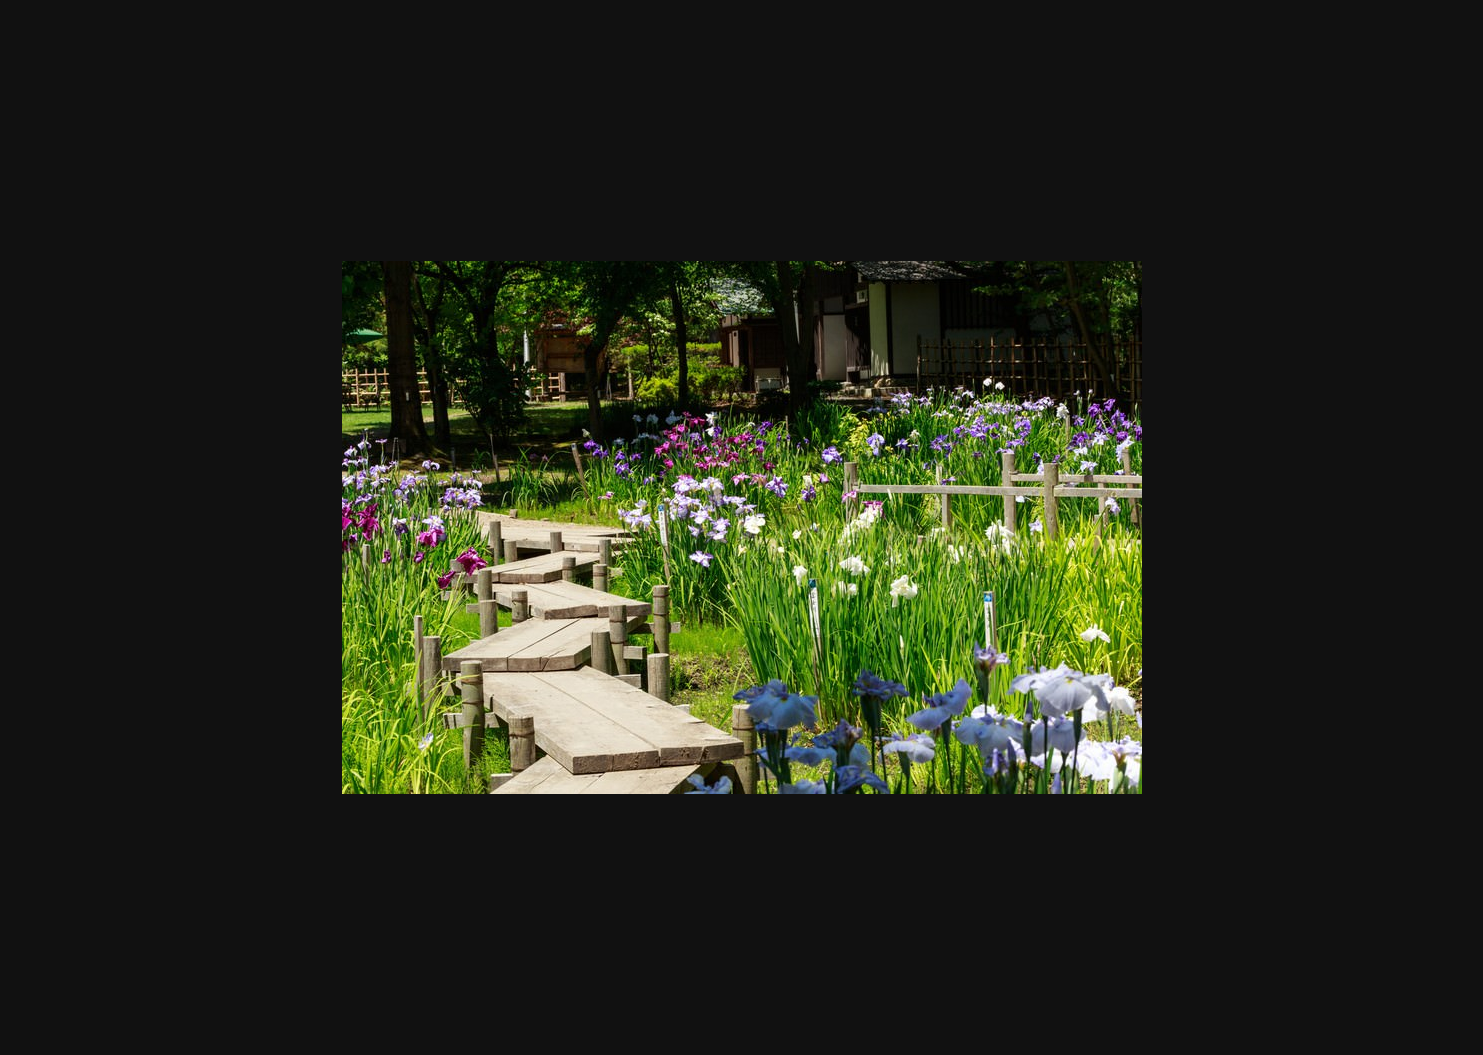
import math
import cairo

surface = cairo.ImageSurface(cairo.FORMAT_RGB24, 1483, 1055)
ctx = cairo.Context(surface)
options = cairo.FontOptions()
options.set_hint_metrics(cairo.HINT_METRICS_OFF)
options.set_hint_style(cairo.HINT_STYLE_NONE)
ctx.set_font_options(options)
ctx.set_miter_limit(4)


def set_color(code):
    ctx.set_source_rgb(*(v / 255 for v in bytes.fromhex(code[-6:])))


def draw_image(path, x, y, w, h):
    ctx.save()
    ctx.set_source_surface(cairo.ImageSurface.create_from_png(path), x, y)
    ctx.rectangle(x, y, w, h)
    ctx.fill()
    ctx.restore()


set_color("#111111")
ctx.paint()
draw_image("assets/img1.png", 342, 261, 800, 533)
surface.write_to_png("output.png")
